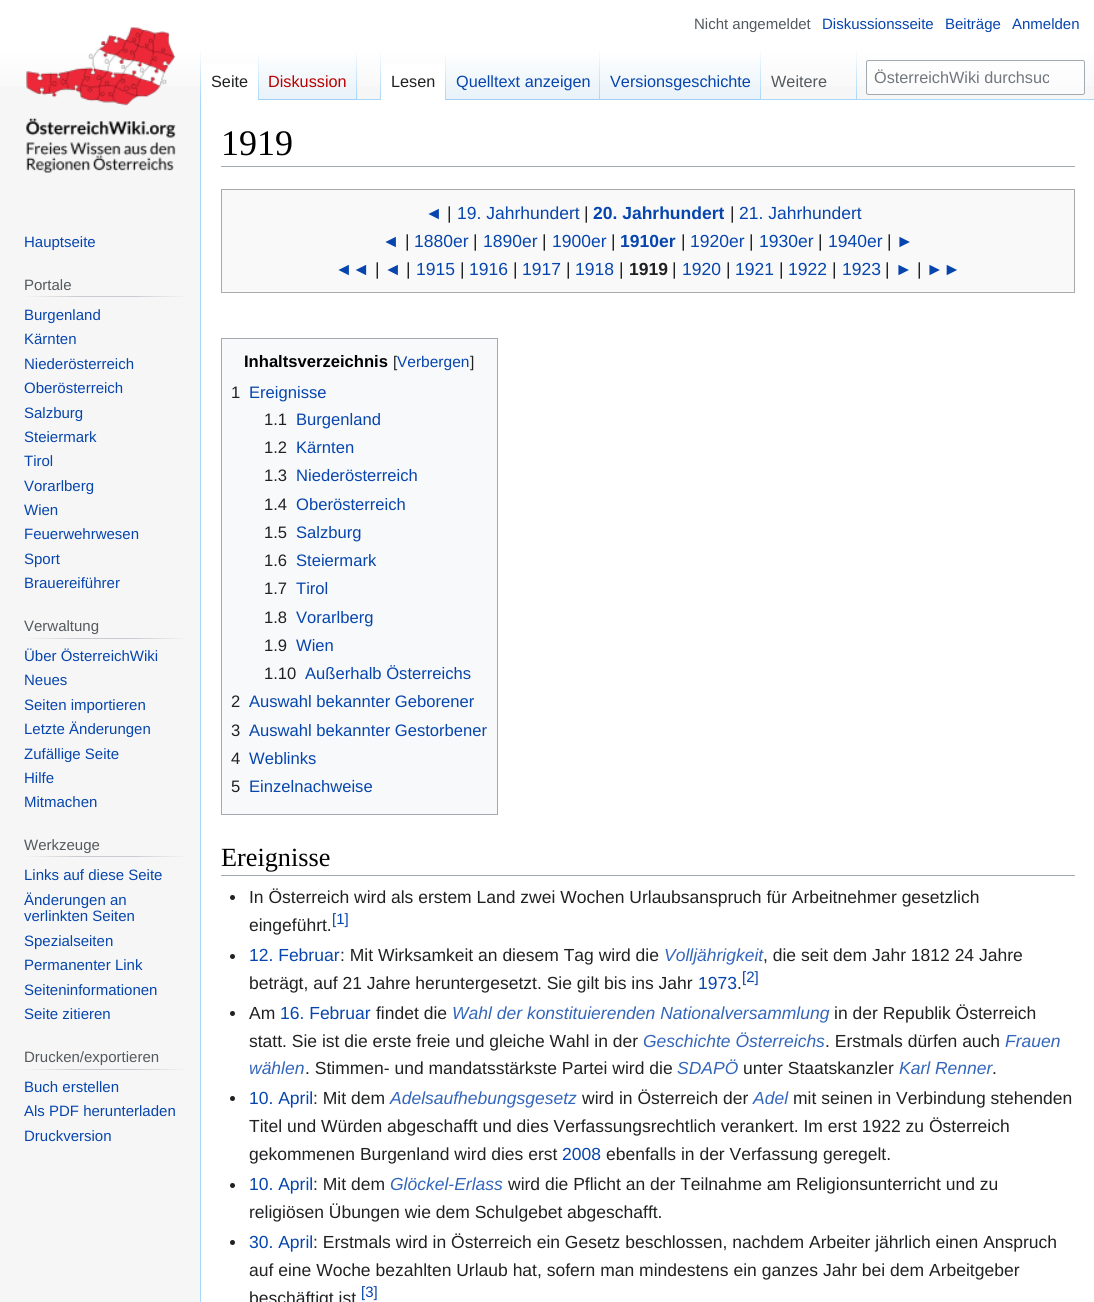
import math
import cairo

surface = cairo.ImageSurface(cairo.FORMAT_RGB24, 1094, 1302)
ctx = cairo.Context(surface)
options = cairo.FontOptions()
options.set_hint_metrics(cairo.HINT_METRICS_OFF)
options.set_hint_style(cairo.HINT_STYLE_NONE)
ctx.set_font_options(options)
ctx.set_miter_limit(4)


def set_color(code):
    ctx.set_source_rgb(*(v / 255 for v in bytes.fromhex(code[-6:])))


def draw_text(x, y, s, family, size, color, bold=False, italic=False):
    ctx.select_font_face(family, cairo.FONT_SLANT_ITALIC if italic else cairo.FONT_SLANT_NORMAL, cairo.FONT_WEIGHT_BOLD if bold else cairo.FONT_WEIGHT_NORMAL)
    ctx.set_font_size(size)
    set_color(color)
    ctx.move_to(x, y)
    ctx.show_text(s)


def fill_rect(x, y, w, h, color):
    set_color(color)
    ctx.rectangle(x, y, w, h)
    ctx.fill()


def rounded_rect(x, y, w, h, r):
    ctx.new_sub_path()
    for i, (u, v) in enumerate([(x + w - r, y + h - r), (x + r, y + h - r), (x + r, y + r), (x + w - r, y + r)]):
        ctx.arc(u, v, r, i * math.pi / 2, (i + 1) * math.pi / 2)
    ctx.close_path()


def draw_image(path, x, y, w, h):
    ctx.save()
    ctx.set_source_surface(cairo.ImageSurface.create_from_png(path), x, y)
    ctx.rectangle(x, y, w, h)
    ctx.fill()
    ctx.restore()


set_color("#f6f6f6")
ctx.paint()
gradient = cairo.LinearGradient(548, 0, 548, 100)
gradient.add_color_stop_rgba(0.5, 1, 1, 1, 1)
gradient.add_color_stop_rgba(1, 0.965, 0.965, 0.965, 1)
ctx.set_source(gradient)
ctx.rectangle(0, 0, 1094, 86)
ctx.fill()
draw_text(694, 29, "Nicht angemeldet", "Liberation Sans", 15, "#54595d")
draw_text(822, 29, "Diskussionsseite", "Liberation Sans", 15, "#0645ad")
draw_text(945, 29, "Beiträge", "Liberation Sans", 15, "#0645ad")
draw_text(1012, 29, "Anmelden", "Liberation Sans", 15, "#0645ad")
fill_rect(200, 99, 1, 1203, "#a7d7f9")
gradient = cairo.LinearGradient(201, 50, 201, 100)
gradient.add_color_stop_rgba(0, 0.655, 0.843, 0.976, 0)
gradient.add_color_stop_rgba(1, 0.655, 0.843, 0.976, 1)
ctx.set_source(gradient)
ctx.rectangle(200, 50, 1, 50)
ctx.fill()
fill_rect(201, 64, 57, 36, "#ffffff")
gradient = cairo.LinearGradient(258, 50, 258, 100)
gradient.add_color_stop_rgba(0, 1, 1, 1, 1)
gradient.add_color_stop_rgba(1, 0.655, 0.843, 0.976, 1)
ctx.set_source(gradient)
ctx.rectangle(258, 50, 1, 50)
ctx.fill()
draw_text(211, 87, "Seite", "Liberation Sans", 16.25, "#202122")
gradient = cairo.LinearGradient(308, 100, 308, 50)
gradient.add_color_stop_rgba(0, 0.467, 0.757, 0.965, 1)
gradient.add_color_stop_rgba(0.03, 0.91, 0.949, 0.973, 1)
gradient.add_color_stop_rgba(1, 1, 1, 1, 1)
ctx.set_source(gradient)
ctx.rectangle(259, 57, 99, 43)
ctx.fill()
gradient = cairo.LinearGradient(357, 50, 357, 100)
gradient.add_color_stop_rgba(0, 0.655, 0.843, 0.976, 0)
gradient.add_color_stop_rgba(1, 0.655, 0.843, 0.976, 1)
ctx.set_source(gradient)
ctx.rectangle(356, 50, 1, 50)
ctx.fill()
draw_text(268, 87, "Diskussion", "Liberation Sans", 16.25, "#ba0000")
fill_rect(358, 99, 736, 1, "#a7d7f9")
gradient = cairo.LinearGradient(381, 50, 381, 100)
gradient.add_color_stop_rgba(0, 0.655, 0.843, 0.976, 0)
gradient.add_color_stop_rgba(1, 0.655, 0.843, 0.976, 1)
ctx.set_source(gradient)
ctx.rectangle(380, 50, 1, 50)
ctx.fill()
fill_rect(381, 64, 64, 36, "#ffffff")
gradient = cairo.LinearGradient(446, 50, 446, 100)
gradient.add_color_stop_rgba(0, 1, 1, 1, 1)
gradient.add_color_stop_rgba(1, 0.655, 0.843, 0.976, 1)
ctx.set_source(gradient)
ctx.rectangle(445, 50, 1, 50)
ctx.fill()
draw_text(391, 87, "Lesen", "Liberation Sans", 16.25, "#202122")
gradient = cairo.LinearGradient(523, 100, 523, 50)
gradient.add_color_stop_rgba(0, 0.467, 0.757, 0.965, 1)
gradient.add_color_stop_rgba(0.03, 0.91, 0.949, 0.973, 1)
gradient.add_color_stop_rgba(1, 1, 1, 1, 1)
ctx.set_source(gradient)
ctx.rectangle(446, 57, 154, 43)
ctx.fill()
gradient = cairo.LinearGradient(599, 50, 599, 100)
gradient.add_color_stop_rgba(0, 0.655, 0.843, 0.976, 0)
gradient.add_color_stop_rgba(1, 0.655, 0.843, 0.976, 1)
ctx.set_source(gradient)
ctx.rectangle(599, 50, 1, 50)
ctx.fill()
draw_text(456, 87, "Quelltext anzeigen", "Liberation Sans", 16.25, "#0645ad")
gradient = cairo.LinearGradient(681, 100, 681, 50)
gradient.add_color_stop_rgba(0, 0.467, 0.757, 0.965, 1)
gradient.add_color_stop_rgba(0.03, 0.91, 0.949, 0.973, 1)
gradient.add_color_stop_rgba(1, 1, 1, 1, 1)
ctx.set_source(gradient)
ctx.rectangle(600, 57, 161, 43)
ctx.fill()
gradient = cairo.LinearGradient(761, 50, 761, 100)
gradient.add_color_stop_rgba(0, 0.655, 0.843, 0.976, 0)
gradient.add_color_stop_rgba(1, 0.655, 0.843, 0.976, 1)
ctx.set_source(gradient)
ctx.rectangle(760, 50, 1, 50)
ctx.fill()
draw_text(610, 87, "Versionsgeschichte", "Liberation Sans", 16.25, "#0645ad")
gradient = cairo.LinearGradient(857, 50, 857, 100)
gradient.add_color_stop_rgba(0, 0.655, 0.843, 0.976, 0)
gradient.add_color_stop_rgba(1, 0.655, 0.843, 0.976, 1)
ctx.set_source(gradient)
ctx.rectangle(856, 50, 1, 50)
ctx.fill()
draw_text(771, 87, "Weitere", "Liberation Sans", 16.25, "#54595d")
ctx.set_source_rgba(1, 1, 1, 0.5)
rounded_rect(866.5, 60.5, 218, 34, 2)
ctx.fill_preserve()
set_color("#a2a9b1")
ctx.set_line_width(1)
ctx.stroke()
ctx.save()
ctx.rectangle(874, 69, 175, 19)
ctx.clip()
draw_text(874, 83, "ÖsterreichWiki durchsuc", "Liberation Sans", 16.25, "#72777d")
ctx.restore()
draw_image("assets/img1.png", 26, 27, 150, 146)
draw_text(24, 247, "Hauptseite", "Liberation Sans", 15, "#0645ad")
gradient = cairo.LinearGradient(24, 297, 188, 297)
gradient.add_color_stop_rgba(0, 0.965, 0.965, 0.965, 1)
gradient.add_color_stop_rgba(0.33, 0.784, 0.8, 0.82, 1)
gradient.add_color_stop_rgba(0.66, 0.784, 0.8, 0.82, 1)
gradient.add_color_stop_rgba(1, 0.965, 0.965, 0.965, 1)
ctx.set_source(gradient)
ctx.rectangle(24, 296, 164, 1)
ctx.fill()
draw_text(24, 290, "Portale", "Liberation Sans", 15, "#54595d")
draw_text(24, 320, "Burgenland", "Liberation Sans", 15, "#0645ad")
draw_text(24, 344, "Kärnten", "Liberation Sans", 15, "#0645ad")
draw_text(24, 369, "Niederösterreich", "Liberation Sans", 15, "#0645ad")
draw_text(24, 393, "Oberösterreich", "Liberation Sans", 15, "#0645ad")
draw_text(24, 418, "Salzburg", "Liberation Sans", 15, "#0645ad")
draw_text(24, 442, "Steiermark", "Liberation Sans", 15, "#0645ad")
draw_text(24, 466, "Tirol", "Liberation Sans", 15, "#0645ad")
draw_text(24, 491, "Vorarlberg", "Liberation Sans", 15, "#0645ad")
draw_text(24, 515, "Wien", "Liberation Sans", 15, "#0645ad")
draw_text(24, 539, "Feuerwehrwesen", "Liberation Sans", 15, "#0645ad")
draw_text(24, 564, "Sport", "Liberation Sans", 15, "#0645ad")
draw_text(24, 588, "Brauereiführer", "Liberation Sans", 15, "#0645ad")
gradient = cairo.LinearGradient(24, 638, 188, 638)
gradient.add_color_stop_rgba(0, 0.965, 0.965, 0.965, 1)
gradient.add_color_stop_rgba(0.33, 0.784, 0.8, 0.82, 1)
gradient.add_color_stop_rgba(0.66, 0.784, 0.8, 0.82, 1)
gradient.add_color_stop_rgba(1, 0.965, 0.965, 0.965, 1)
ctx.set_source(gradient)
ctx.rectangle(24, 638, 164, 1)
ctx.fill()
draw_text(24, 631, "Verwaltung", "Liberation Sans", 15, "#54595d")
draw_text(24, 661, "Über ÖsterreichWiki", "Liberation Sans", 15, "#0645ad")
draw_text(24, 685, "Neues", "Liberation Sans", 15, "#0645ad")
draw_text(24, 710, "Seiten importieren", "Liberation Sans", 15, "#0645ad")
draw_text(24, 734, "Letzte Änderungen", "Liberation Sans", 15, "#0645ad")
draw_text(24, 759, "Zufällige Seite", "Liberation Sans", 15, "#0645ad")
draw_text(24, 783, "Hilfe", "Liberation Sans", 15, "#0645ad")
draw_text(24, 807, "Mitmachen", "Liberation Sans", 15, "#0645ad")
gradient = cairo.LinearGradient(24, 857, 188, 857)
gradient.add_color_stop_rgba(0, 0.965, 0.965, 0.965, 1)
gradient.add_color_stop_rgba(0.33, 0.784, 0.8, 0.82, 1)
gradient.add_color_stop_rgba(0.66, 0.784, 0.8, 0.82, 1)
gradient.add_color_stop_rgba(1, 0.965, 0.965, 0.965, 1)
ctx.set_source(gradient)
ctx.rectangle(24, 856, 164, 1)
ctx.fill()
draw_text(24, 850, "Werkzeuge", "Liberation Sans", 15, "#54595d")
draw_text(24, 880, "Links auf diese Seite", "Liberation Sans", 15, "#0645ad")
draw_text(24, 905, "Änderungen an", "Liberation Sans", 15, "#0645ad")
draw_text(24, 921, "verlinkten Seiten", "Liberation Sans", 15, "#0645ad")
draw_text(24, 946, "Spezialseiten", "Liberation Sans", 15, "#0645ad")
draw_text(24, 970, "Permanenter Link", "Liberation Sans", 15, "#0645ad")
draw_text(24, 995, "Seiteninformationen", "Liberation Sans", 15, "#0645ad")
draw_text(24, 1019, "Seite zitieren", "Liberation Sans", 15, "#0645ad")
gradient = cairo.LinearGradient(24, 1069, 188, 1069)
gradient.add_color_stop_rgba(0, 0.965, 0.965, 0.965, 1)
gradient.add_color_stop_rgba(0.33, 0.784, 0.8, 0.82, 1)
gradient.add_color_stop_rgba(0.66, 0.784, 0.8, 0.82, 1)
gradient.add_color_stop_rgba(1, 0.965, 0.965, 0.965, 1)
ctx.set_source(gradient)
ctx.rectangle(24, 1069, 164, 1)
ctx.fill()
draw_text(24, 1062, "Drucken/exportieren", "Liberation Sans", 15, "#54595d")
draw_text(24, 1092, "Buch erstellen", "Liberation Sans", 15, "#0645ad")
draw_text(24, 1116, "Als PDF herunterladen", "Liberation Sans", 15, "#0645ad")
draw_text(24, 1141, "Druckversion", "Liberation Sans", 15, "#0645ad")
fill_rect(201, 100, 893, 1202, "#ffffff")
fill_rect(221, 166, 854, 1, "#a2a9b1")
draw_text(221, 155, "1919", "Liberation Serif", 36, "#000000")
set_color("#f9f9f9")
ctx.rectangle(221.5, 189.5, 853, 103)
ctx.fill_preserve()
set_color("#aaaaaa")
ctx.stroke()
draw_text(425, 219, "◄", "Liberation Sans", 17.5, "#0645ad")
draw_text(447, 219, "|", "Liberation Sans", 17.5, "#202122")
draw_text(457, 219, "19. Jahrhundert", "Liberation Sans", 17.5, "#0645ad")
draw_text(584, 219, "|", "Liberation Sans", 17.5, "#202122")
draw_text(593, 219, "20. Jahrhundert", "Liberation Sans", 17.5, "#0645ad", bold=True)
draw_text(730, 219, "|", "Liberation Sans", 17.5, "#202122")
draw_text(739, 219, "21. Jahrhundert", "Liberation Sans", 17.5, "#0645ad")
draw_text(382, 247, "◄", "Liberation Sans", 17.5, "#0645ad")
draw_text(405, 247, "|", "Liberation Sans", 17.5, "#202122")
draw_text(414, 247, "1880er", "Liberation Sans", 17.5, "#0645ad")
draw_text(473, 247, "|", "Liberation Sans", 17.5, "#202122")
draw_text(483, 247, "1890er", "Liberation Sans", 17.5, "#0645ad")
draw_text(542, 247, "|", "Liberation Sans", 17.5, "#202122")
draw_text(552, 247, "1900er", "Liberation Sans", 17.5, "#0645ad")
draw_text(611, 247, "|", "Liberation Sans", 17.5, "#202122")
draw_text(620, 247, "1910er", "Liberation Sans", 17.5, "#0645ad", bold=True)
draw_text(681, 247, "|", "Liberation Sans", 17.5, "#202122")
draw_text(690, 247, "1920er", "Liberation Sans", 17.5, "#0645ad")
draw_text(749, 247, "|", "Liberation Sans", 17.5, "#202122")
draw_text(759, 247, "1930er", "Liberation Sans", 17.5, "#0645ad")
draw_text(818, 247, "|", "Liberation Sans", 17.5, "#202122")
draw_text(828, 247, "1940er", "Liberation Sans", 17.5, "#0645ad")
draw_text(887, 247, "|", "Liberation Sans", 17.5, "#202122")
draw_text(896, 247, "►", "Liberation Sans", 17.5, "#0645ad")
draw_text(335, 275, "◄◄", "Liberation Sans", 17.5, "#0645ad")
draw_text(375, 275, "|", "Liberation Sans", 17.5, "#202122")
draw_text(384, 275, "◄", "Liberation Sans", 17.5, "#0645ad")
draw_text(406, 275, "|", "Liberation Sans", 17.5, "#202122")
draw_text(416, 275, "1915", "Liberation Sans", 17.5, "#0645ad")
draw_text(460, 275, "|", "Liberation Sans", 17.5, "#202122")
draw_text(469, 275, "1916", "Liberation Sans", 17.5, "#0645ad")
draw_text(513, 275, "|", "Liberation Sans", 17.5, "#202122")
draw_text(522, 275, "1917", "Liberation Sans", 17.5, "#0645ad")
draw_text(566, 275, "|", "Liberation Sans", 17.5, "#202122")
draw_text(575, 275, "1918", "Liberation Sans", 17.5, "#0645ad")
draw_text(619, 275, "|", "Liberation Sans", 17.5, "#202122")
draw_text(629, 275, "1919", "Liberation Sans", 17.5, "#202122", bold=True)
draw_text(672, 275, "|", "Liberation Sans", 17.5, "#202122")
draw_text(682, 275, "1920", "Liberation Sans", 17.5, "#0645ad")
draw_text(726, 275, "|", "Liberation Sans", 17.5, "#202122")
draw_text(735, 275, "1921", "Liberation Sans", 17.5, "#0645ad")
draw_text(779, 275, "|", "Liberation Sans", 17.5, "#202122")
draw_text(788, 275, "1922", "Liberation Sans", 17.5, "#0645ad")
draw_text(832, 275, "|", "Liberation Sans", 17.5, "#202122")
draw_text(842, 275, "1923", "Liberation Sans", 17.5, "#0645ad")
draw_text(885, 275, "|", "Liberation Sans", 17.5, "#202122")
draw_text(895, 275, "►", "Liberation Sans", 17.5, "#0645ad")
draw_text(917, 275, "|", "Liberation Sans", 17.5, "#202122")
draw_text(926, 275, "►►", "Liberation Sans", 17.5, "#0645ad")
set_color("#f8f9fa")
ctx.rectangle(221.5, 338.5, 276, 476)
ctx.fill_preserve()
set_color("#a2a9b1")
ctx.stroke()
draw_text(244, 367, "Inhaltsverzeichnis", "Liberation Sans", 16.6, "#000000", bold=True)
draw_text(393, 367, "[", "Liberation Sans", 15.5, "#202122")
draw_text(397, 367, "Verbergen", "Liberation Sans", 15.5, "#0645ad")
draw_text(470, 367, "]", "Liberation Sans", 15.5, "#202122")
draw_text(231, 398, "1", "Liberation Sans", 16.6, "#202122")
draw_text(249, 398, "Ereignisse", "Liberation Sans", 16.6, "#0645ad")
draw_text(264, 425, "1.1", "Liberation Sans", 16.6, "#202122")
draw_text(296, 425, "Burgenland", "Liberation Sans", 16.6, "#0645ad")
draw_text(264, 453, "1.2", "Liberation Sans", 16.6, "#202122")
draw_text(296, 453, "Kärnten", "Liberation Sans", 16.6, "#0645ad")
draw_text(264, 481, "1.3", "Liberation Sans", 16.6, "#202122")
draw_text(296, 481, "Niederösterreich", "Liberation Sans", 16.6, "#0645ad")
draw_text(264, 510, "1.4", "Liberation Sans", 16.6, "#202122")
draw_text(296, 510, "Oberösterreich", "Liberation Sans", 16.6, "#0645ad")
draw_text(264, 538, "1.5", "Liberation Sans", 16.6, "#202122")
draw_text(296, 538, "Salzburg", "Liberation Sans", 16.6, "#0645ad")
draw_text(264, 566, "1.6", "Liberation Sans", 16.6, "#202122")
draw_text(296, 566, "Steiermark", "Liberation Sans", 16.6, "#0645ad")
draw_text(264, 594, "1.7", "Liberation Sans", 16.6, "#202122")
draw_text(296, 594, "Tirol", "Liberation Sans", 16.6, "#0645ad")
draw_text(264, 623, "1.8", "Liberation Sans", 16.6, "#202122")
draw_text(296, 623, "Vorarlberg", "Liberation Sans", 16.6, "#0645ad")
draw_text(264, 651, "1.9", "Liberation Sans", 16.6, "#202122")
draw_text(296, 651, "Wien", "Liberation Sans", 16.6, "#0645ad")
draw_text(264, 679, "1.10", "Liberation Sans", 16.6, "#202122")
draw_text(305, 679, "Außerhalb Österreichs", "Liberation Sans", 16.6, "#0645ad")
draw_text(231, 707, "2", "Liberation Sans", 16.6, "#202122")
draw_text(249, 707, "Auswahl bekannter Geborener", "Liberation Sans", 16.6, "#0645ad")
draw_text(231, 736, "3", "Liberation Sans", 16.6, "#202122")
draw_text(249, 736, "Auswahl bekannter Gestorbener", "Liberation Sans", 16.6, "#0645ad")
draw_text(231, 764, "4", "Liberation Sans", 16.6, "#202122")
draw_text(249, 764, "Weblinks", "Liberation Sans", 16.6, "#0645ad")
draw_text(231, 792, "5", "Liberation Sans", 16.6, "#202122")
draw_text(249, 792, "Einzelnachweise", "Liberation Sans", 16.6, "#0645ad")
fill_rect(221, 875, 854, 1, "#a2a9b1")
draw_text(221, 866, "Ereignisse", "Liberation Serif", 26.25, "#000000")
set_color("#202122")
ctx.new_path()
ctx.arc(232.5, 897.5, 2.5, 0, 2 * math.pi)
ctx.fill()
draw_text(249, 903, "In Österreich wird als erstem Land zwei Wochen Urlaubsanspruch für Arbeitnehmer gesetzlich", "Liberation Sans", 17.5, "#202122")
draw_text(249, 931, "eingeführt.", "Liberation Sans", 17.5, "#202122")
draw_text(332, 924, "[1]", "Liberation Sans", 15, "#0645ad")
set_color("#202122")
ctx.new_path()
ctx.arc(232.5, 956.5, 2.5, 0, 2 * math.pi)
ctx.fill()
draw_text(249, 961, "12. Februar", "Liberation Sans", 17.5, "#0645ad")
draw_text(340, 961, ": Mit Wirksamkeit an diesem Tag wird die", "Liberation Sans", 17.5, "#202122")
draw_text(664, 961, "Volljährigkeit", "Liberation Sans", 17.5, "#3366bb", italic=True)
draw_text(763, 961, ", die seit dem Jahr 1812 24 Jahre", "Liberation Sans", 17.5, "#202122")
draw_text(249, 989, "beträgt, auf 21 Jahre heruntergesetzt. Sie gilt bis ins Jahr", "Liberation Sans", 17.5, "#202122")
draw_text(698, 989, "1973", "Liberation Sans", 17.5, "#0645ad")
draw_text(737, 989, ".", "Liberation Sans", 17.5, "#202122")
draw_text(742, 982, "[2]", "Liberation Sans", 15, "#0645ad")
set_color("#202122")
ctx.new_path()
ctx.arc(232.5, 1013.5, 2.5, 0, 2 * math.pi)
ctx.fill()
draw_text(249, 1019, "Am", "Liberation Sans", 17.5, "#202122")
draw_text(280, 1019, "16. Februar", "Liberation Sans", 17.5, "#0645ad")
draw_text(376, 1019, "findet die", "Liberation Sans", 17.5, "#202122")
draw_text(452, 1019, "Wahl der konstituierenden Nationalversammlung", "Liberation Sans", 17.5, "#3366bb", italic=True)
draw_text(834, 1019, "in der Republik Österreich", "Liberation Sans", 17.5, "#202122")
draw_text(249, 1047, "statt. Sie ist die erste freie und gleiche Wahl in der", "Liberation Sans", 17.5, "#202122")
draw_text(643, 1047, "Geschichte Österreichs", "Liberation Sans", 17.5, "#3366bb", italic=True)
draw_text(825, 1047, ". Erstmals dürfen auch", "Liberation Sans", 17.5, "#202122")
draw_text(1005, 1047, "Frauen", "Liberation Sans", 17.5, "#3366bb", italic=True)
draw_text(249, 1074, "wählen", "Liberation Sans", 17.5, "#3366bb", italic=True)
draw_text(305, 1074, ". Stimmen- und mandatsstärkste Partei wird die", "Liberation Sans", 17.5, "#202122")
draw_text(677, 1074, "SDAPÖ", "Liberation Sans", 17.5, "#3366bb", italic=True)
draw_text(743, 1074, "unter Staatskanzler", "Liberation Sans", 17.5, "#202122")
draw_text(899, 1074, "Karl Renner", "Liberation Sans", 17.5, "#3366bb", italic=True)
draw_text(992, 1074, ".", "Liberation Sans", 17.5, "#202122")
ctx.new_path()
ctx.arc(232.5, 1098.5, 2.5, 0, 2 * math.pi)
ctx.fill()
draw_text(249, 1104, "10. April", "Liberation Sans", 17.5, "#0645ad")
draw_text(313, 1104, ": Mit dem", "Liberation Sans", 17.5, "#202122")
draw_text(390, 1104, "Adelsaufhebungsgesetz", "Liberation Sans", 17.5, "#3366bb", italic=True)
draw_text(582, 1104, "wird in Österreich der", "Liberation Sans", 17.5, "#202122")
draw_text(753, 1104, "Adel", "Liberation Sans", 17.5, "#3366bb", italic=True)
draw_text(793, 1104, "mit seinen in Verbindung stehenden", "Liberation Sans", 17.5, "#202122")
draw_text(249, 1132, "Titel und Würden abgeschafft und dies Verfassungsrechtlich verankert. Im erst 1922 zu Österreich", "Liberation Sans", 17.5, "#202122")
draw_text(249, 1160, "gekommenen Burgenland wird dies erst", "Liberation Sans", 17.5, "#202122")
draw_text(562, 1160, "2008", "Liberation Sans", 17.5, "#0645ad")
draw_text(606, 1160, "ebenfalls in der Verfassung geregelt.", "Liberation Sans", 17.5, "#202122")
ctx.new_path()
ctx.arc(232.5, 1185.5, 2.5, 0, 2 * math.pi)
ctx.fill()
draw_text(249, 1190, "10. April", "Liberation Sans", 17.5, "#0645ad")
draw_text(313, 1190, ": Mit dem", "Liberation Sans", 17.5, "#202122")
draw_text(390, 1190, "Glöckel-Erlass", "Liberation Sans", 17.5, "#3366bb", italic=True)
draw_text(508, 1190, "wird die Pflicht an der Teilnahme am Religionsunterricht und zu", "Liberation Sans", 17.5, "#202122")
draw_text(249, 1218, "religiösen Übungen wie dem Schulgebet abgeschafft.", "Liberation Sans", 17.5, "#202122")
ctx.new_path()
ctx.arc(232.5, 1242.5, 2.5, 0, 2 * math.pi)
ctx.fill()
draw_text(249, 1248, "30. April", "Liberation Sans", 17.5, "#0645ad")
draw_text(313, 1248, ": Erstmals wird in Österreich ein Gesetz beschlossen, nachdem Arbeiter jährlich einen Anspruch", "Liberation Sans", 17.5, "#202122")
draw_text(249, 1276, "auf eine Woche bezahlten Urlaub hat, sofern man mindestens ein ganzes Jahr bei dem Arbeitgeber", "Liberation Sans", 17.5, "#202122")
draw_text(249, 1304, "beschäftigt ist", "Liberation Sans", 17.5, "#202122")
draw_text(361, 1297, "[3]", "Liberation Sans", 15, "#0645ad")
surface.write_to_png("output.png")
